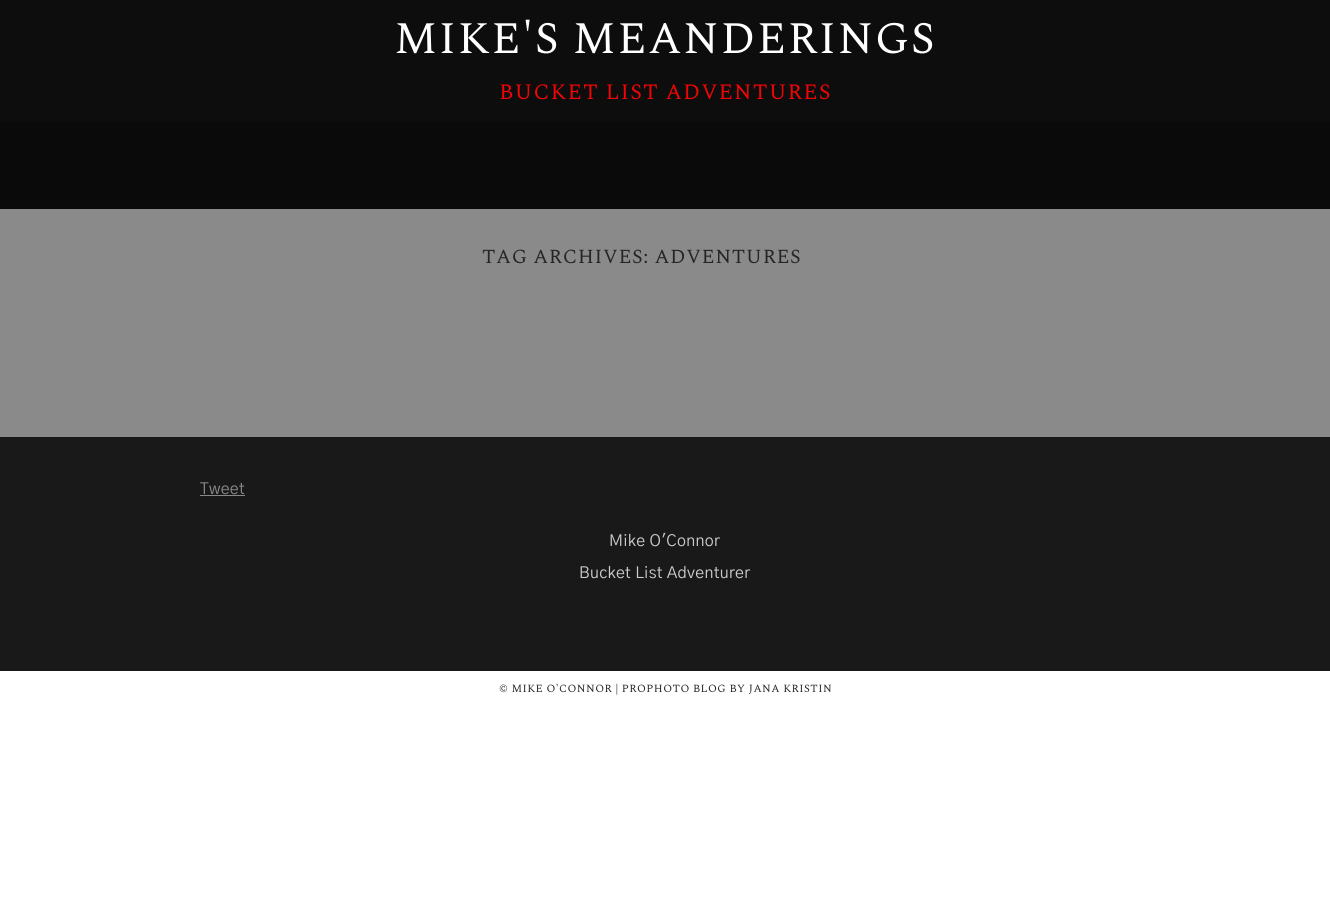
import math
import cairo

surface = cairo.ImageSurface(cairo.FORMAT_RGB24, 1330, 912)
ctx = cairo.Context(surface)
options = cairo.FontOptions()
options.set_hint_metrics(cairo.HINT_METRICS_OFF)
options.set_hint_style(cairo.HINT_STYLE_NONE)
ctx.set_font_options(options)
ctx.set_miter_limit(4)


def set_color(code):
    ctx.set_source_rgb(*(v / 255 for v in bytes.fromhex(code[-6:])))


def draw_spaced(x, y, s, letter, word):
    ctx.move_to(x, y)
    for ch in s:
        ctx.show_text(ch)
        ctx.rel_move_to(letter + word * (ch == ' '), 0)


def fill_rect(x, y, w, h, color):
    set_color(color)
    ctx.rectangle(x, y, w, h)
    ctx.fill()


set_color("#ffffff")
ctx.paint()
fill_rect(0, 0, 1330, 122, "#0e0d0d")
ctx.select_font_face("Spectral")
ctx.set_font_size(45)
set_color("#ffffff")
draw_spaced(394, 53, "MIKE'S MEANDERINGS", 1.4, 0)
ctx.set_font_size(22)
set_color("#ef0505")
draw_spaced(499, 99, "BUCKET LIST ADVENTURES", 1.1, 0)
fill_rect(0, 122, 1330, 87, "#0a0a0a")
fill_rect(0, 209, 1330, 228, "#8a8a8a")
ctx.set_font_size(20)
set_color("#252525")
draw_spaced(482, 263, "TAG ARCHIVES: ADVENTURES", 0.6, 0)
fill_rect(0, 437, 1330, 234, "#191919")
ctx.select_font_face("Gothic A1")
ctx.set_font_size(16)
set_color("#898989")
draw_spaced(200, 494, "Tweet", 0.3, 0)
fill_rect(200, 495, 45, 1, "#898989")
set_color("#cccccc")
draw_spaced(609, 546, "Mike O'Connor", 0.3, 0)
draw_spaced(579, 578, "Bucket List Adventurer", 0.3, 0)
ctx.select_font_face("Spectral")
ctx.set_font_size(11)
set_color("#252525")
draw_spaced(499, 692, "© MIKE O'CONNOR | PROPHOTO BLOG BY JANA KRISTIN", 0.45, 0)
surface.write_to_png("output.png")
